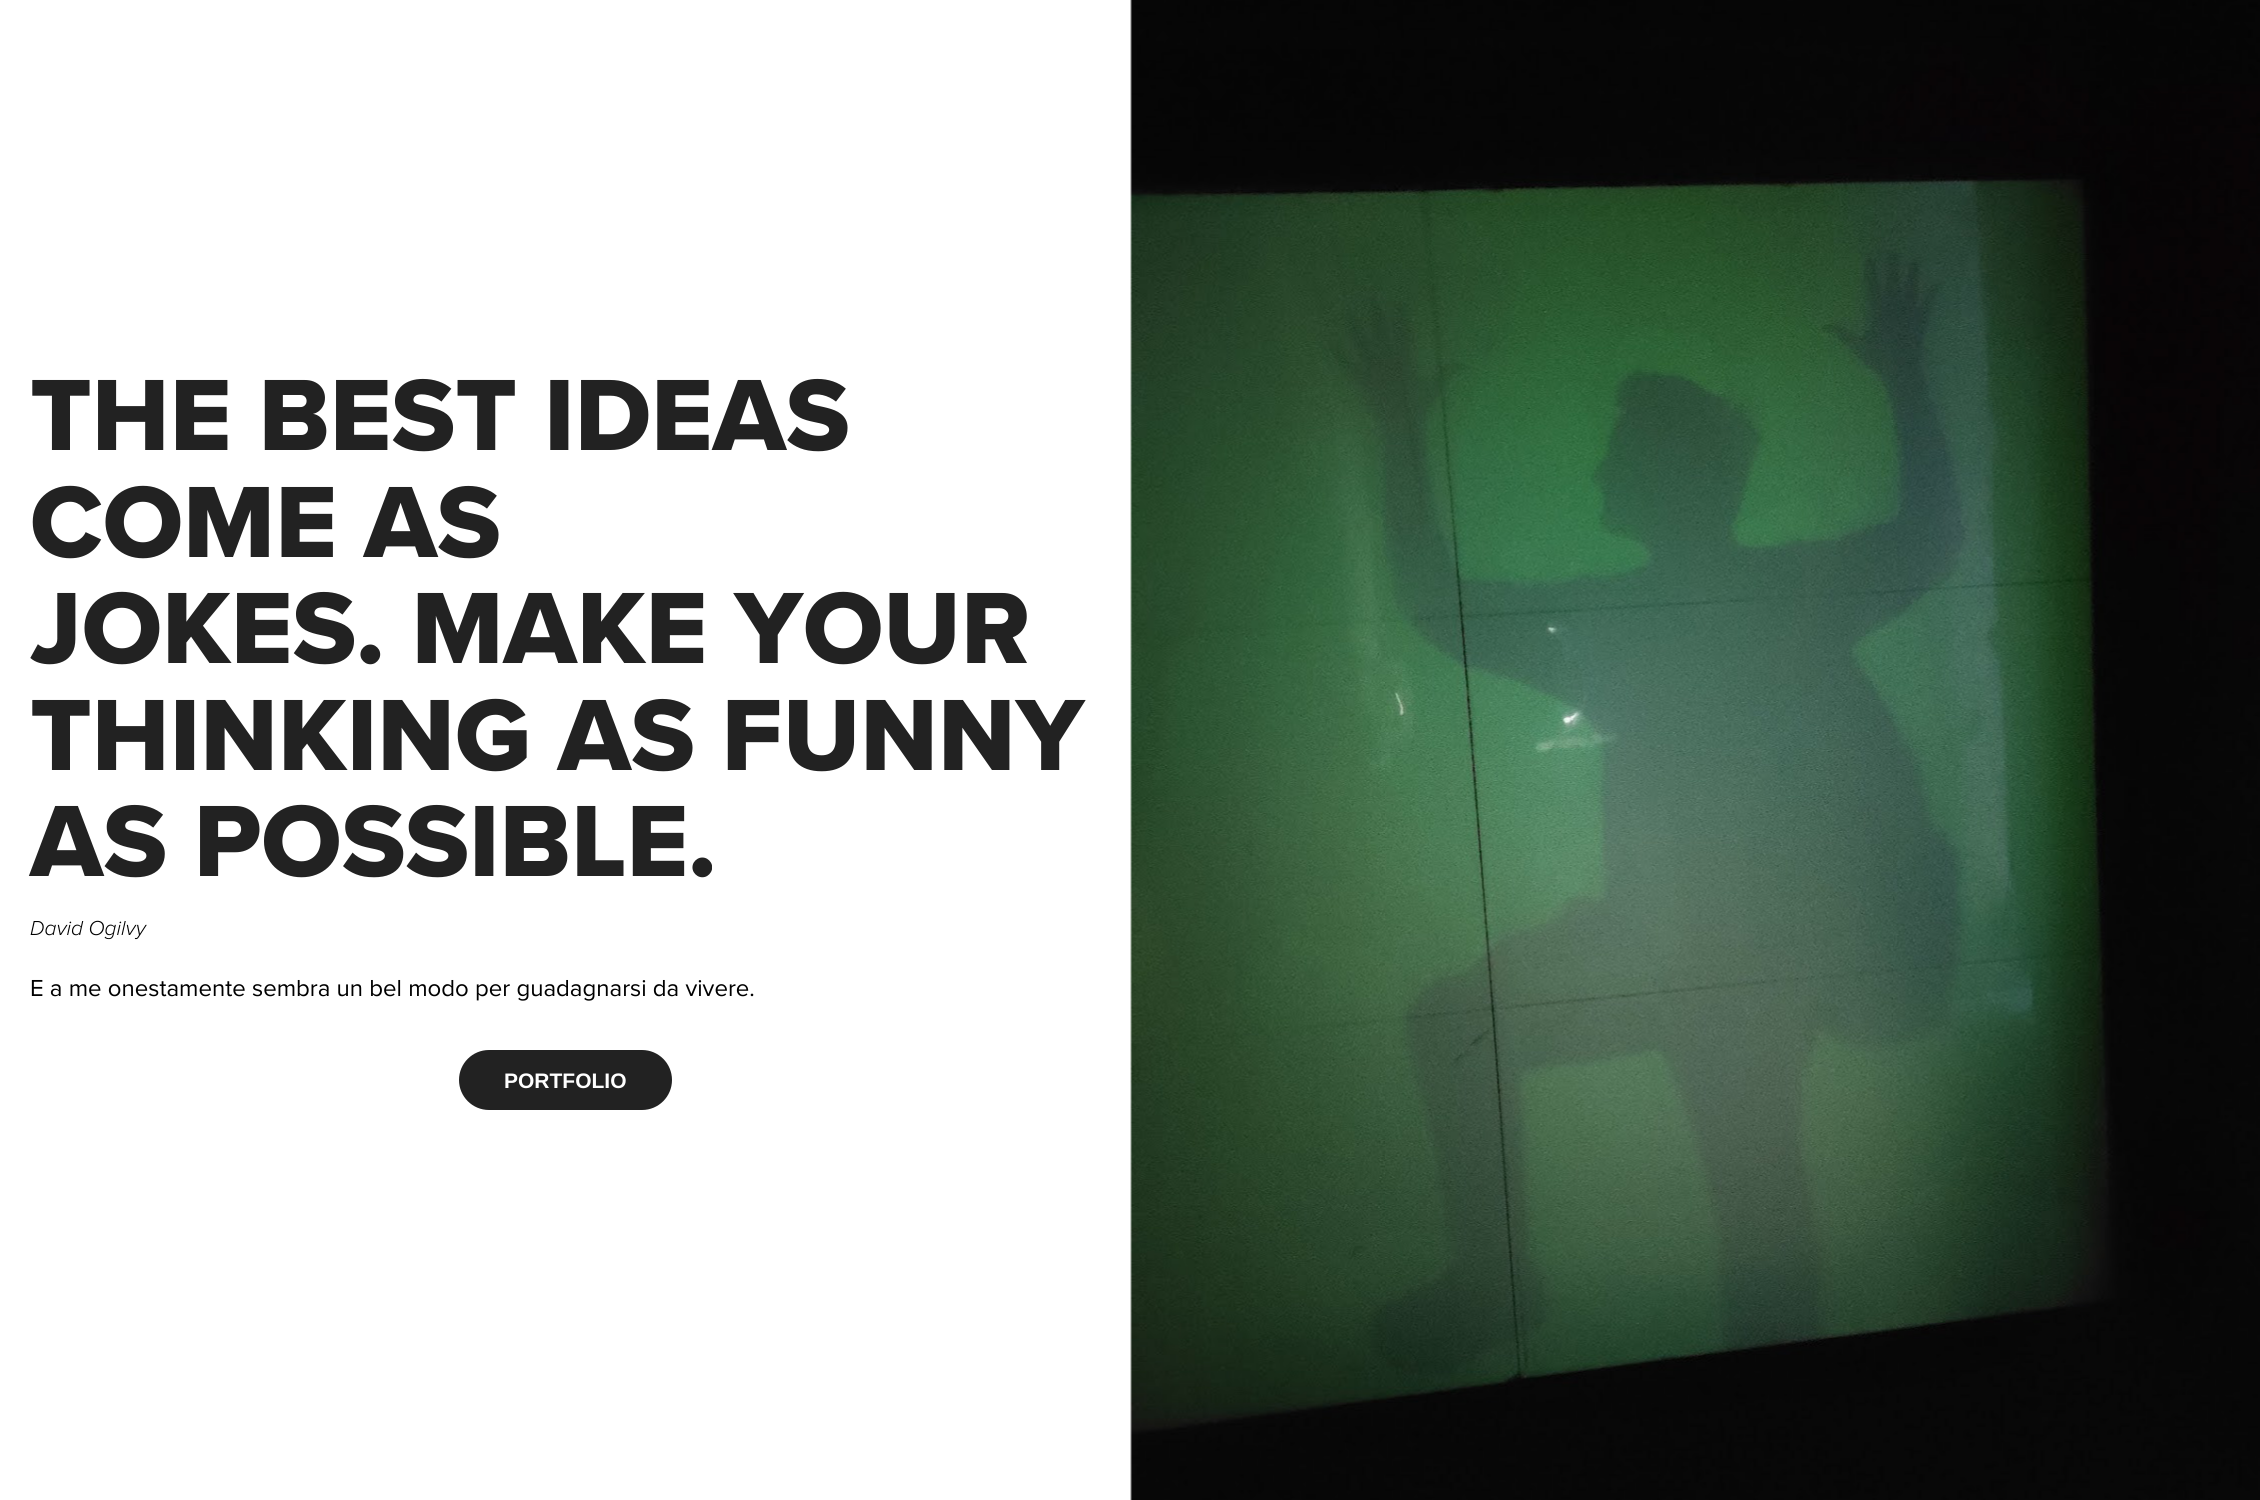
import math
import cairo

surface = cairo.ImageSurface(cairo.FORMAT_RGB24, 2260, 1500)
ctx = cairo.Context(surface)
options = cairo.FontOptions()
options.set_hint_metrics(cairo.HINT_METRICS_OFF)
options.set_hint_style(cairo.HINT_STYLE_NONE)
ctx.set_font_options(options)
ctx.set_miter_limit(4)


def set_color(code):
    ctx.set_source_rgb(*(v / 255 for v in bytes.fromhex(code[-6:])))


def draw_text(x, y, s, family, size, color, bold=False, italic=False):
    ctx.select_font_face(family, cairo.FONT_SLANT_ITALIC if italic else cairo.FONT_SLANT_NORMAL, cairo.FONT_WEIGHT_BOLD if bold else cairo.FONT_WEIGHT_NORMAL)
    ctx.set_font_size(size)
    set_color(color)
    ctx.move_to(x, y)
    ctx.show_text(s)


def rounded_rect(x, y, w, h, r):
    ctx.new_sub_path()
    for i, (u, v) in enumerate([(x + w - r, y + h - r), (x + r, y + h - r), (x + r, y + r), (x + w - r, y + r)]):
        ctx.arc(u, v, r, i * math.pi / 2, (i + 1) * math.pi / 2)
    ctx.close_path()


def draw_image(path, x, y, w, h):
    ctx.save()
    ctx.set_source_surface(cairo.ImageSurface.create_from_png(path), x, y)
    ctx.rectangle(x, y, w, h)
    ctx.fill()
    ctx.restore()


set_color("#ffffff")
ctx.paint()
draw_text(30, 450, "THE BEST IDEAS", "Proxima Nova ExtraBold", 105, "#222222")
draw_text(30, 557, "COME AS", "Proxima Nova ExtraBold", 105, "#222222")
draw_text(30, 663, "JOKES. MAKE YOUR", "Proxima Nova ExtraBold", 105, "#222222")
draw_text(30, 770, "THINKING AS FUNNY", "Proxima Nova ExtraBold", 105, "#222222")
draw_text(30, 876, "AS POSSIBLE.", "Proxima Nova ExtraBold", 105, "#222222")
draw_text(30, 935, "David Ogilvy", "Proxima Nova Light", 21, "#000000", italic=True)
draw_text(30, 996, "E a me onestamente sembra un bel modo per guadagnarsi da vivere.", "Proxima Nova", 24, "#000000")
set_color("#222222")
rounded_rect(459, 1050, 213, 60, 30)
ctx.fill()
draw_text(504, 1088, "PORTFOLIO", "Liberation Sans", 21, "#ffffff", bold=True)
draw_image("assets/img1.png", 1130, 0, 1130, 1500)
surface.write_to_png("output.png")
